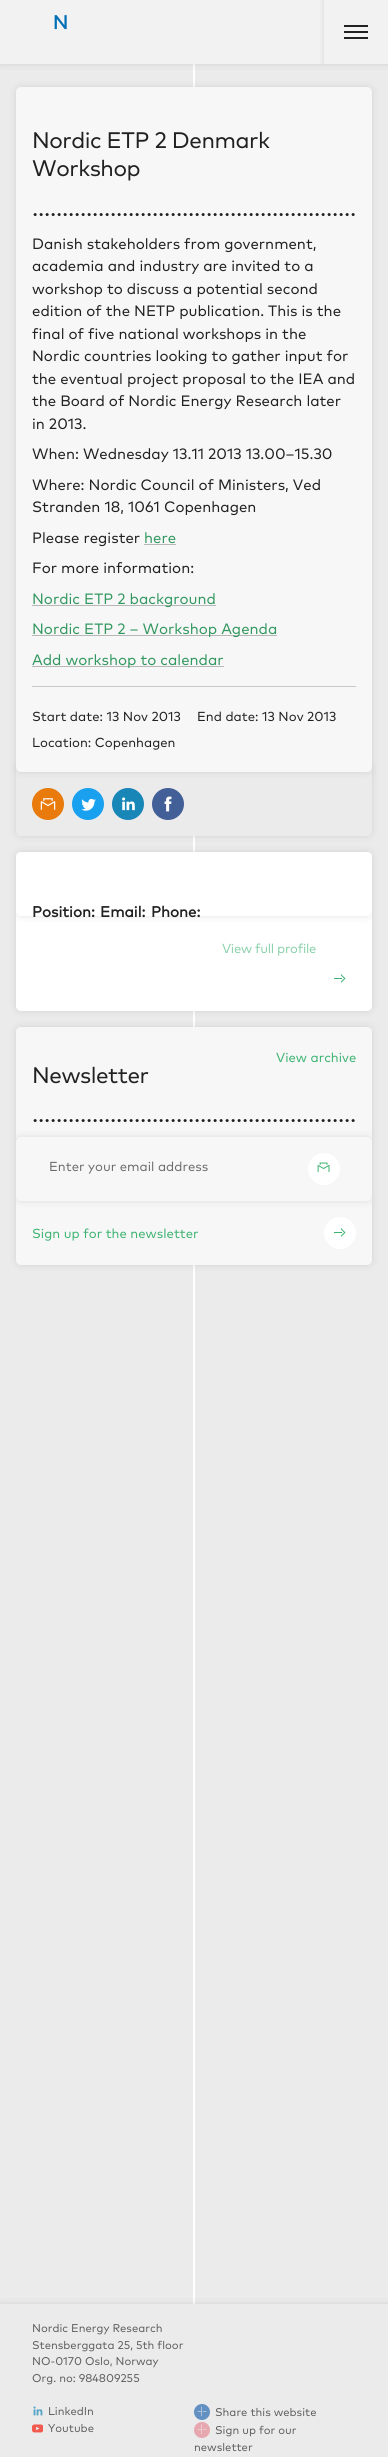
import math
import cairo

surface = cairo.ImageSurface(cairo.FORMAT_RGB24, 388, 2457)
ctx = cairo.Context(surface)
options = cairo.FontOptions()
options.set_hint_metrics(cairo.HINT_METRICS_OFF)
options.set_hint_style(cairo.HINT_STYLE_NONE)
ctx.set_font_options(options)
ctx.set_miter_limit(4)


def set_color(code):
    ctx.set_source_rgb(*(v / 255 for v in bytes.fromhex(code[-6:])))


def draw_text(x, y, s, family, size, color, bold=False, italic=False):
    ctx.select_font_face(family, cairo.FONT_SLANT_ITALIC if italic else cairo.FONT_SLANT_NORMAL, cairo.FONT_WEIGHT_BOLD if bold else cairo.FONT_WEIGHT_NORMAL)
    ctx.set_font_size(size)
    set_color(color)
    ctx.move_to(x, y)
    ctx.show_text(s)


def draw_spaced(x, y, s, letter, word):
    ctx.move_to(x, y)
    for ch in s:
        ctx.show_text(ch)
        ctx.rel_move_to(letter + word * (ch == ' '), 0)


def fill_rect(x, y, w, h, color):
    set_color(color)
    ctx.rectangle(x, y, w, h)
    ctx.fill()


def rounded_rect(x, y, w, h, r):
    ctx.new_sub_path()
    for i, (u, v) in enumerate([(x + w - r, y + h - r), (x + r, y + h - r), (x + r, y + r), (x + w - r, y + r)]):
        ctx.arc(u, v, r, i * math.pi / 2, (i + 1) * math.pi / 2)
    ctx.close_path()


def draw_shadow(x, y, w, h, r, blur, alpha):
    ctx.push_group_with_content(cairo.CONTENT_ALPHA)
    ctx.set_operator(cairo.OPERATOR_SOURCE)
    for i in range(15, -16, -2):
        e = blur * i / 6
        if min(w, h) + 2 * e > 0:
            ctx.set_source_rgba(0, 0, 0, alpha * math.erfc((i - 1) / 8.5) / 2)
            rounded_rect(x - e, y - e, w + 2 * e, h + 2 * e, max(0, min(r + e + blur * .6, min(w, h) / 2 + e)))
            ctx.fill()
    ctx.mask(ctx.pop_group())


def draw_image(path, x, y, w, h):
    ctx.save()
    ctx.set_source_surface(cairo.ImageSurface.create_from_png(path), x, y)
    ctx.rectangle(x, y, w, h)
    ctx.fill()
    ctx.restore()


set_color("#ebebeb")
ctx.paint()
fill_rect(193, 64, 2, 2240, "#ffffff")
set_color("#1a1a1a")
draw_shadow(0, 0, 388, 64, 0, 4, 0.12)
fill_rect(0, 0, 388, 64, "#f2f2f2")
draw_image("assets/img1.png", 54, 15, 13, 15)
ctx.save()
ctx.rectangle(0, 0, 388, 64)
ctx.clip()
ctx.rectangle(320, 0, 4, 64)
ctx.clip()
set_color("#1a1a1a")
draw_shadow(324, 0, 64, 64, 0, 4, 0.12)
ctx.restore()
draw_image("assets/img2.png", 344, 25, 24, 14)
set_color("#1a1a1a")
draw_shadow(16, 766, 356, 70, 5, 4, 0.12)
set_color("#ebebeb")
ctx.new_path()
ctx.move_to(16, 766)
ctx.line_to(372, 766)
ctx.line_to(372, 831)
ctx.curve_to(372, 834, 370, 836, 367, 836)
ctx.line_to(21, 836)
ctx.curve_to(18, 836, 16, 834, 16, 831)
ctx.close_path()
ctx.fill()
set_color("#1a1a1a")
draw_shadow(16, 87, 356, 685, 5, 4, 0.12)
set_color("#f7f7f7")
rounded_rect(16, 87, 356, 685, 5)
ctx.fill()
ctx.select_font_face("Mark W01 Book")
ctx.set_font_size(22.5)
set_color("#212121")
draw_spaced(32, 148, "Nordic ETP 2 Denmark", -0.5, 0)
draw_spaced(32, 176, "Workshop", -0.5, 0)
draw_image("assets/img3.png", 33, 213, 322, 3)
draw_text(32, 249, "Danish stakeholders from government,", "Mark W01 Book", 15, "#212121")
draw_text(32, 271, "academia and industry are invited to a", "Mark W01 Book", 15, "#212121")
draw_text(32, 294, "workshop to discuss a potential second", "Mark W01 Book", 15, "#212121")
draw_text(32, 316, "edition of the NETP publication. This is the", "Mark W01 Book", 15, "#212121")
draw_text(32, 339, "final of five national workshops in the", "Mark W01 Book", 15, "#212121")
draw_text(32, 361, "Nordic countries looking to gather input for", "Mark W01 Book", 15, "#212121")
draw_text(32, 384, "the eventual project proposal to the IEA and", "Mark W01 Book", 15, "#212121")
draw_text(32, 406, "the Board of Nordic Energy Research later", "Mark W01 Book", 15, "#212121")
draw_text(32, 429, "in 2013.", "Mark W01 Book", 15, "#212121")
draw_text(32, 459, "When: Wednesday 13.11 2013 13.00–15.30", "Mark W01 Book", 15, "#212121")
draw_text(32, 490, "Where: Nordic Council of Ministers, Ved", "Mark W01 Book", 15, "#212121")
draw_text(32, 512, "Stranden 18, 1061 Copenhagen", "Mark W01 Book", 15, "#212121")
draw_text(32, 543, "Please register", "Mark W01 Book", 15, "#212121")
draw_text(144, 543, "here", "Mark W01 Book", 15, "#339860")
fill_rect(144, 544, 32, 1, "#b7b7b7")
draw_text(32, 573, "For more information:", "Mark W01 Book", 15, "#212121")
fill_rect(32, 605, 184, 1, "#b7b7b7")
draw_text(32, 604, "Nordic ETP 2 background", "Mark W01 Book", 15, "#339860")
fill_rect(32, 635, 245, 1, "#b7b7b7")
draw_text(32, 634, "Nordic ETP 2 – Workshop Agenda", "Mark W01 Book", 15, "#339860")
fill_rect(32, 666, 192, 1, "#b7b7b7")
draw_text(32, 665, "Add workshop to calendar", "Mark W01 Book", 15, "#339860")
fill_rect(32, 686, 324, 1, "#c8c8c8")
draw_text(32, 721, "Start date: 13 Nov 2013", "Mark W01 Book", 13.1, "#212121")
draw_text(197, 721, "End date: 13 Nov 2013", "Mark W01 Book", 13.1, "#212121")
draw_text(32, 747, "Location: Copenhagen", "Mark W01 Book", 13.1, "#212121")
set_color("#e97a0c")
ctx.new_path()
ctx.arc(48, 804, 16, 0, 2 * math.pi)
ctx.fill()
draw_image("assets/img4.png", 40, 798, 16, 12)
set_color("#19a1f0")
ctx.arc(88, 804, 16, 0, 2 * math.pi)
ctx.fill()
draw_image("assets/img5.png", 81, 798, 15, 13)
set_color("#1986b8")
ctx.arc(128, 804, 16, 0, 2 * math.pi)
ctx.fill()
draw_image("assets/img6.png", 122, 797, 13, 14)
set_color("#435f98")
ctx.arc(168, 804, 16, 0, 2 * math.pi)
ctx.fill()
draw_image("assets/img7.png", 164, 796, 8, 16)
set_color("#1a1a1a")
draw_shadow(16, 852, 356, 159, 5, 4, 0.12)
set_color("#ffffff")
rounded_rect(16, 852, 356, 159, 5)
ctx.fill()
ctx.save()
rounded_rect(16, 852, 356, 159, 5)
ctx.clip()
set_color("#1a1a1a")
draw_shadow(16, 852, 356, 64, 5, 4, 0.12)
ctx.restore()
rounded_rect(16, 852, 356, 64, 5)
ctx.fill()
draw_text(32, 917, "Position:", "Mark W01 Book", 15, "#212121", bold=True)
draw_text(100, 917, "Email:", "Mark W01 Book", 15, "#212121", bold=True)
draw_text(151, 917, "Phone:", "Mark W01 Book", 15, "#212121", bold=True)
ctx.select_font_face("Mark W01 Book")
ctx.set_font_size(13.1)
set_color("#8ad1aa")
draw_spaced(222, 953, "View full profile", -0.3, 0)
draw_image("assets/img8.png", 334, 974, 12, 9)
set_color("#1a1a1a")
draw_shadow(16, 1027, 356, 238, 5, 4, 0.12)
set_color("#f7f7f7")
rounded_rect(16, 1027, 356, 238, 5)
ctx.fill()
ctx.save()
rounded_rect(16, 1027, 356, 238, 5)
ctx.clip()
set_color("#1a1a1a")
draw_shadow(16, 1027, 356, 115, 5, 4, 0.12)
ctx.restore()
rounded_rect(16, 1027, 356, 115, 5)
ctx.fill()
draw_text(276, 1062, "View archive", "Mark W01 Book", 13.1, "#3cb371")
ctx.set_font_size(22.5)
set_color("#212121")
draw_spaced(32, 1083, "Newsletter", -0.5, 0)
draw_image("assets/img3.png", 33, 1119, 322, 3)
ctx.save()
rounded_rect(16, 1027, 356, 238, 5)
ctx.clip()
set_color("#1a1a1a")
draw_shadow(16, 1137, 356, 64, 5, 4, 0.12)
ctx.restore()
set_color("#f7f7f7")
rounded_rect(16, 1137, 356, 64, 5)
ctx.fill()
draw_text(49, 1171, "Enter your email address", "Mark W01 Book", 13.1, "#6c6c6c")
set_color("#ffffff")
ctx.new_path()
ctx.arc(324, 1169, 16, 0, 2 * math.pi)
ctx.fill()
draw_image("assets/img9.png", 317, 1162, 13, 10)
draw_text(32, 1238, "Sign up for the newsletter", "Mark W01 Book", 13.1, "#3cb371")
set_color("#ffffff")
ctx.new_path()
ctx.arc(340, 1233, 16, 0, 2 * math.pi)
ctx.fill()
draw_image("assets/img8.png", 334, 1228, 12, 9)
set_color("#1a1a1a")
draw_shadow(0, 2304, 388, 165, 0, 4, 0.12)
fill_rect(0, 2304, 388, 153, "#ebebeb")
draw_text(32, 2332, "Nordic Energy Research", "Mark W01 Book", 11.25, "#5e5e5e")
draw_text(32, 2349, "Stensberggata 25, 5th floor", "Mark W01 Book", 11.25, "#5e5e5e")
draw_text(32, 2365, "NO-0170 Oslo, Norway", "Mark W01 Book", 11.25, "#5e5e5e")
draw_text(32, 2382, "Org. no: 984809255", "Mark W01 Book", 11.25, "#5e5e5e")
draw_image("assets/img10.png", 33, 2406, 10, 10)
draw_text(48, 2415, "LinkedIn", "Mark W01 Book", 11.25, "#5e5e5e")
draw_image("assets/img11.png", 32, 2424, 11, 9)
draw_text(48, 2432, "Youtube", "Mark W01 Book", 11.25, "#5e5e5e")
set_color("#6290c2")
ctx.new_path()
ctx.arc(202, 2412, 8, 0, 2 * math.pi)
ctx.fill()
draw_image("assets/img12.png", 197, 2406, 10, 11)
draw_text(215, 2416, "Share this website", "Mark W01 Book", 11.25, "#5e5e5e")
set_color("#e7a7af")
ctx.new_path()
ctx.arc(202, 2430, 8, 0, 2 * math.pi)
ctx.fill()
draw_image("assets/img13.png", 197, 2424, 10, 11)
draw_text(215, 2434, "Sign up for our", "Mark W01 Book", 11.25, "#5e5e5e")
draw_text(194, 2451, "newsletter", "Mark W01 Book", 11.25, "#5e5e5e")
surface.write_to_png("output.png")
